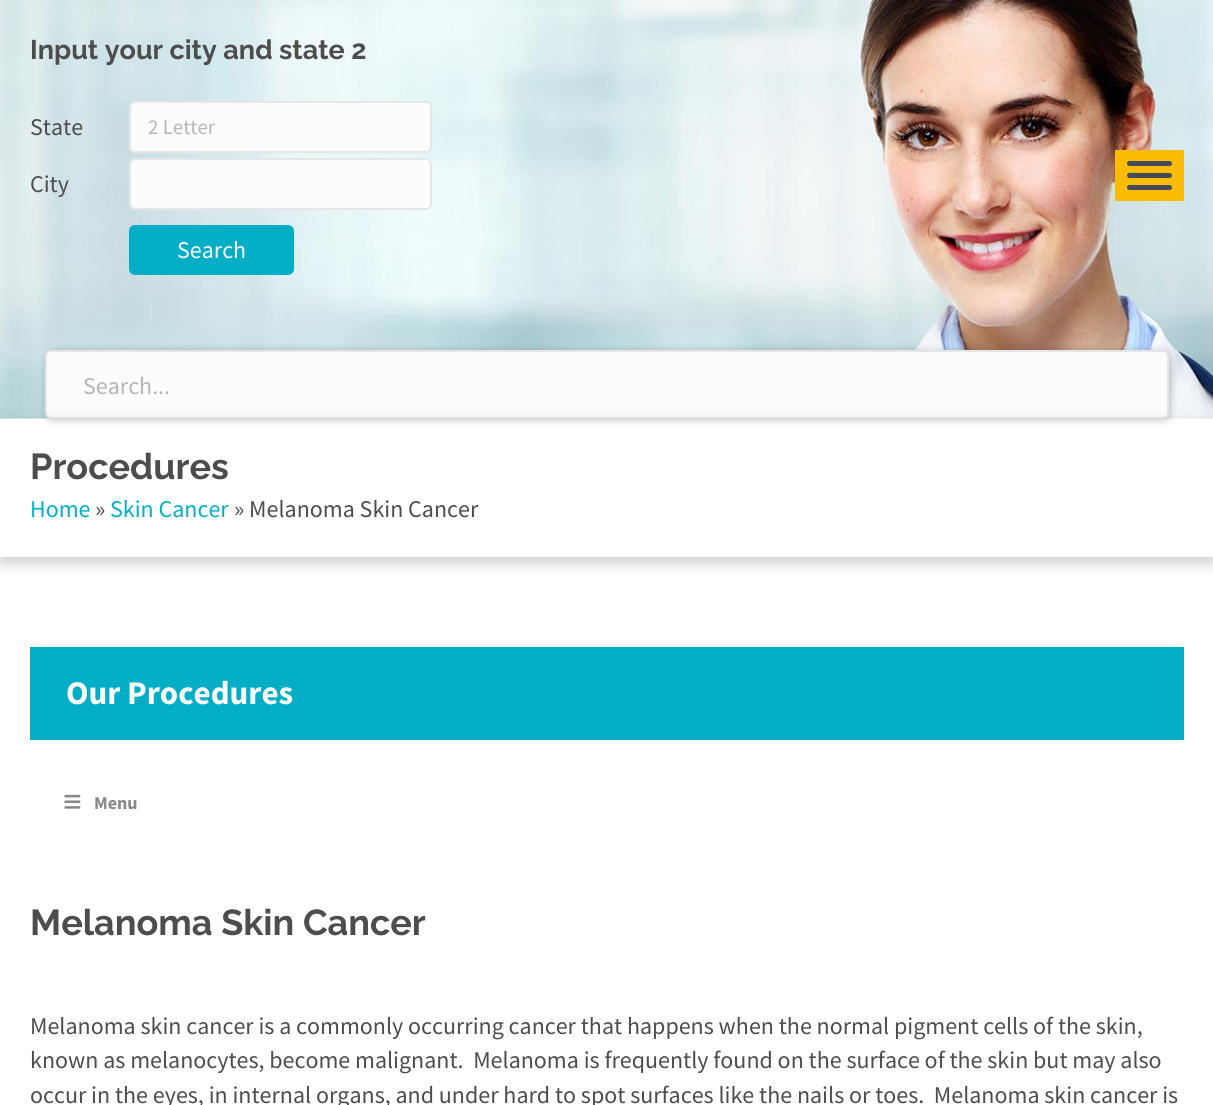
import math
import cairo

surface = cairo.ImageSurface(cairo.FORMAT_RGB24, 1213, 1105)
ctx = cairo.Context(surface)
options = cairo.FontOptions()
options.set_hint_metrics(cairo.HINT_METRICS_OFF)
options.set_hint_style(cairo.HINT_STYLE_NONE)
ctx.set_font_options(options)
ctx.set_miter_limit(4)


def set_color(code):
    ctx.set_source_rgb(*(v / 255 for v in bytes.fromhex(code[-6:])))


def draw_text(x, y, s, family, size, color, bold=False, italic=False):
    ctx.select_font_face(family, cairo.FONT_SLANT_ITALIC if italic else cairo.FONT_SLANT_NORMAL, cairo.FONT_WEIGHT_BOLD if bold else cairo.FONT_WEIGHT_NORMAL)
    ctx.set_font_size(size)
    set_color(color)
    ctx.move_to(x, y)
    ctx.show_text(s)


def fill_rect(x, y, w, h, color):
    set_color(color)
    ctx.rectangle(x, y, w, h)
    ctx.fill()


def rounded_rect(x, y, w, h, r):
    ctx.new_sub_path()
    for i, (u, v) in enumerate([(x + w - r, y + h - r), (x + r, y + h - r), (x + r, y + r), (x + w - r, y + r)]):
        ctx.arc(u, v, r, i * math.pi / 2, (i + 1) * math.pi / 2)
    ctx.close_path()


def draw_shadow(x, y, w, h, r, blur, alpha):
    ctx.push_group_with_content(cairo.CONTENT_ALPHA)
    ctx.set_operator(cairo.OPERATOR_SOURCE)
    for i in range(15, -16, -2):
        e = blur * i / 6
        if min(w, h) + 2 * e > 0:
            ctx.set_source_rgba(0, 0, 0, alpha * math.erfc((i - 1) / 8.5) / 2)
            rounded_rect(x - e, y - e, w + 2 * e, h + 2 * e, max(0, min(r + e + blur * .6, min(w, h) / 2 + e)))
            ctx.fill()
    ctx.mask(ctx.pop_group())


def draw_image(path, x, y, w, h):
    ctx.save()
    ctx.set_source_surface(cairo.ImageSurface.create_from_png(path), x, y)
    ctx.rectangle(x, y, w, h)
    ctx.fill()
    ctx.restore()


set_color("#ffffff")
ctx.paint()
draw_image("assets/img1.png", 0, 0, 1213, 419)
draw_text(30, 59, "Input your city and state 2", "Raleway Thin", 27, "#4d4d4d")
draw_text(30, 135, "State", "Source Sans Pro", 24, "#4d4d4d")
set_color("#fcfcfc")
rounded_rect(130, 102, 301, 50, 5)
ctx.fill_preserve()
set_color("#e6e6e6")
ctx.stroke()
draw_text(148, 134, "2 Letter", "Source Sans Pro", 21, "#b6b6b6")
draw_text(30, 192, "City", "Source Sans Pro", 24, "#4d4d4d")
set_color("#fcfcfc")
rounded_rect(130, 159, 301, 50, 5)
ctx.fill_preserve()
set_color("#e6e6e6")
ctx.stroke()
set_color("#02adc6")
rounded_rect(130, 226, 163, 48, 5)
ctx.fill_preserve()
ctx.stroke()
draw_text(177, 258, "Search", "Source Sans Pro", 24, "#ffffff")
fill_rect(1115, 150, 69, 51, "#fbbb00")
set_color("#444a5b")
rounded_rect(1127, 173, 45, 5, 2.5)
ctx.fill()
rounded_rect(1127, 161, 45, 5, 2.5)
ctx.fill()
rounded_rect(1127, 185, 45, 5, 2.5)
ctx.fill()
set_color("#444a5b")
draw_shadow(47, 351, 1123, 69, 6, 4, 0.34)
set_color("#fcfcfc")
rounded_rect(46, 351, 1122, 67, 5)
ctx.fill_preserve()
set_color("#e6e6e6")
ctx.stroke()
draw_text(83, 394, "Search...", "Source Sans Pro", 24, "#b6b6b6")
ctx.save()
ctx.set_fill_rule(cairo.FILL_RULE_EVEN_ODD)
ctx.new_path()
ctx.move_to(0, 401)
ctx.line_to(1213, 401)
ctx.line_to(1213, 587)
ctx.line_to(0, 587)
ctx.close_path()
ctx.move_to(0, 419)
ctx.line_to(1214, 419)
ctx.line_to(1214, 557)
ctx.line_to(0, 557)
ctx.close_path()
ctx.clip()
set_color("#000000")
draw_shadow(0, 425, 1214, 138, 0, 7.5, 0.2)
ctx.restore()
draw_text(30, 479, "Procedures", "Raleway Thin", 36, "#4d4d4d")
draw_text(30, 517, "Home", "Source Sans Pro", 24, "#02adc6")
draw_text(95, 517, "»", "Source Sans Pro", 24, "#4d4d4d")
draw_text(110, 517, "Skin Cancer", "Source Sans Pro", 24, "#02adc6")
draw_text(234, 517, "» Melanoma Skin Cancer", "Source Sans Pro", 24, "#4d4d4d")
fill_rect(30, 647, 1154, 93, "#02adc6")
draw_text(66, 704, "Our Procedures", "Source Sans Pro", 33, "#ffffff", bold=True)
draw_image("assets/img2.png", 64, 794, 17, 15)
draw_text(94, 809, "Menu", "Source Sans Pro", 18, "#888888", bold=True)
draw_text(30, 935, "Melanoma Skin Cancer", "Raleway Thin", 36, "#4d4d4d")
draw_text(30, 1034, "Melanoma skin cancer is a commonly occurring cancer that happens when the normal pigment cells of the skin,", "Source Sans Pro", 24, "#4d4d4d")
draw_text(30, 1068, "known as melanocytes, become malignant.  Melanoma is frequently found on the surface of the skin but may also", "Source Sans Pro", 24, "#4d4d4d")
draw_text(30, 1103, "occur in the eyes, in internal organs, and under hard to spot surfaces like the nails or toes.  Melanoma skin cancer is", "Source Sans Pro", 24, "#4d4d4d")
surface.write_to_png("output.png")
